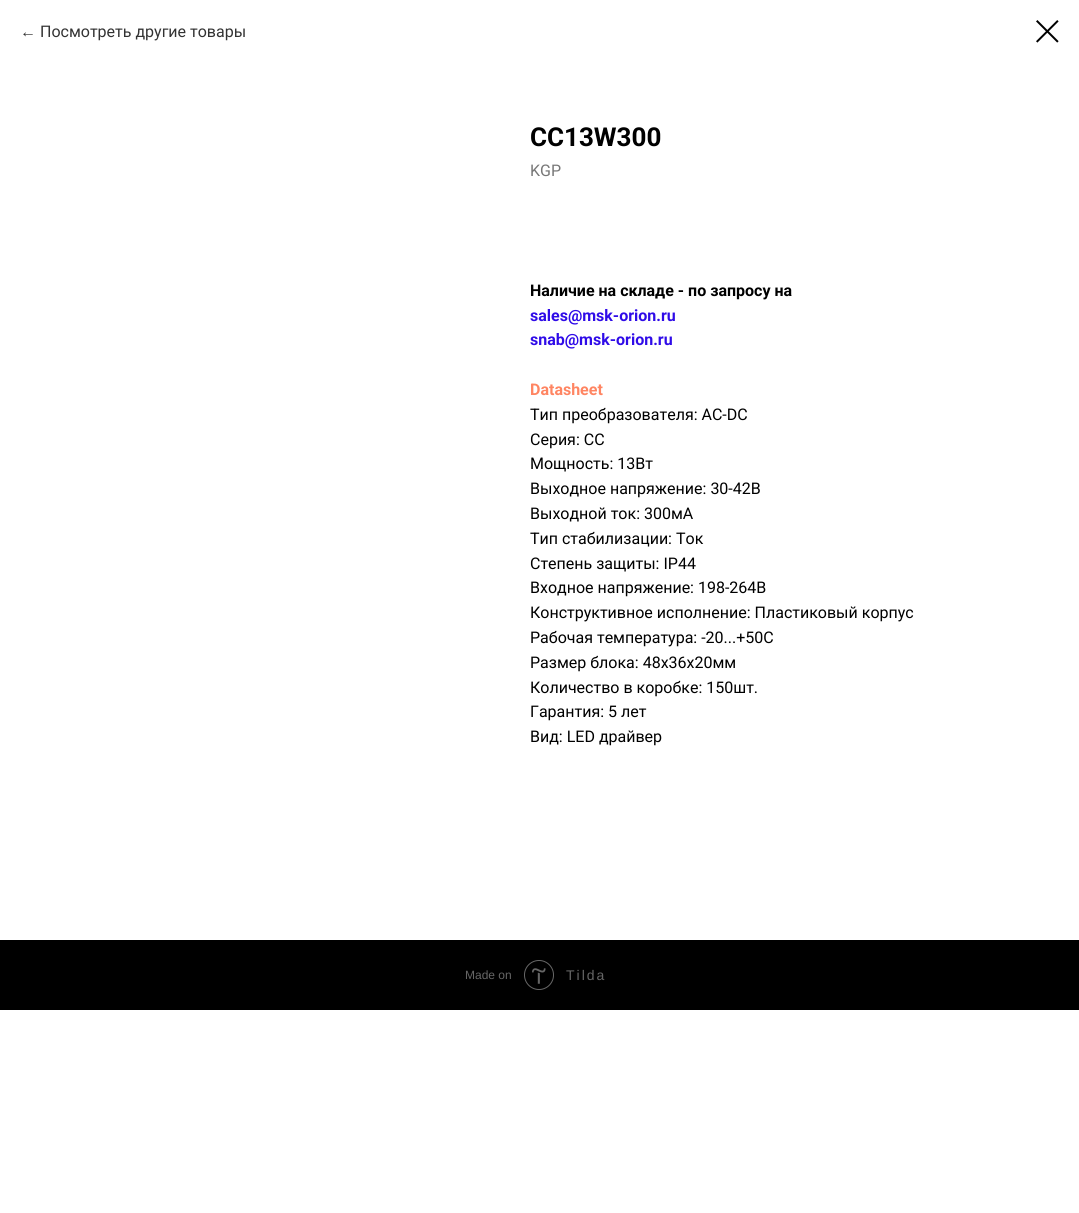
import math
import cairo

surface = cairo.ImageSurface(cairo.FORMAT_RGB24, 1079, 1213)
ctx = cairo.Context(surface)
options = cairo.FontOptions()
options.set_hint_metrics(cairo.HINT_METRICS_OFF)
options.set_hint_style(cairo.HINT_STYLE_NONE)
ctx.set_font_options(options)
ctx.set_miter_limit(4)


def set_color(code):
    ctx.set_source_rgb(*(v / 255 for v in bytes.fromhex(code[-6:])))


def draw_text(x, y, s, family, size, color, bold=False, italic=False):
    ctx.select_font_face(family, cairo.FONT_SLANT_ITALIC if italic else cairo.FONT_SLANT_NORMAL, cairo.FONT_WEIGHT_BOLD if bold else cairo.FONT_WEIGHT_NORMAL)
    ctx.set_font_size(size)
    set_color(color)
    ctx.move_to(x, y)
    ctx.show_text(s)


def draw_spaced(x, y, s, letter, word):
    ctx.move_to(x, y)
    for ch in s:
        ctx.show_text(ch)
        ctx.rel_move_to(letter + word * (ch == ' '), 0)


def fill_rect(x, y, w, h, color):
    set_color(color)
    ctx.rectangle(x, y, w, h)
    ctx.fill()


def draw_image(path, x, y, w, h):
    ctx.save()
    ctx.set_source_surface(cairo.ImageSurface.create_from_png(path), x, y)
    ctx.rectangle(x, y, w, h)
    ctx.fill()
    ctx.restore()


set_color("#ffffff")
ctx.paint()
draw_text(20, 37, "←", "Liberation Sans", 16, "#333333")
draw_text(40, 37, "Посмотреть другие товары", "Roboto", 16, "#333333")
draw_image("assets/img1.png", 1036, 20, 23, 23)
draw_text(530, 146, "CC13W300", "Roboto", 26, "#000000", bold=True)
draw_text(530, 176, "KGP", "Roboto", 16, "#777777")
draw_text(530, 296, "Наличие на складе - по запросу на", "Roboto", 16, "#000000", bold=True)
draw_text(530, 321, "sales@msk-orion.ru", "Roboto", 16, "#2f0be8", bold=True)
draw_text(530, 345, "snab@msk-orion.ru", "Roboto", 16, "#2f0be8", bold=True)
draw_text(530, 395, "Datasheet", "Roboto", 16, "#ff8562", bold=True)
draw_text(530, 420, "Тип преобразователя: AC-DC", "Roboto", 16, "#000000")
draw_text(530, 445, "Серия: CC", "Roboto", 16, "#000000")
draw_text(530, 469, "Мощность: 13Вт", "Roboto", 16, "#000000")
draw_text(530, 494, "Выходное напряжение: 30-42В", "Roboto", 16, "#000000")
draw_text(530, 519, "Выходной ток: 300мА", "Roboto", 16, "#000000")
draw_text(530, 544, "Тип стабилизации: Ток", "Roboto", 16, "#000000")
draw_text(530, 569, "Степень защиты: IP44", "Roboto", 16, "#000000")
draw_text(530, 593, "Входное напряжение: 198-264В", "Roboto", 16, "#000000")
draw_text(530, 618, "Конструктивное исполнение: Пластиковый корпус", "Roboto", 16, "#000000")
draw_text(530, 643, "Рабочая температура: -20...+50С", "Roboto", 16, "#000000")
draw_text(530, 668, "Размер блока: 48х36х20мм", "Roboto", 16, "#000000")
draw_text(530, 693, "Количество в коробке: 150шт.", "Roboto", 16, "#000000")
draw_text(530, 717, "Гарантия: 5 лет", "Roboto", 16, "#000000")
draw_text(530, 742, "Вид: LED драйвер", "Roboto", 16, "#000000")
fill_rect(0, 940, 1079, 70, "#000000")
draw_text(465, 979, "Made on", "Liberation Sans", 12, "#666666")
draw_image("assets/img2.png", 524, 960, 30, 30)
ctx.set_font_size(14)
draw_spaced(566, 980, "Tilda", 2, 0)
surface.write_to_png("output.png")
